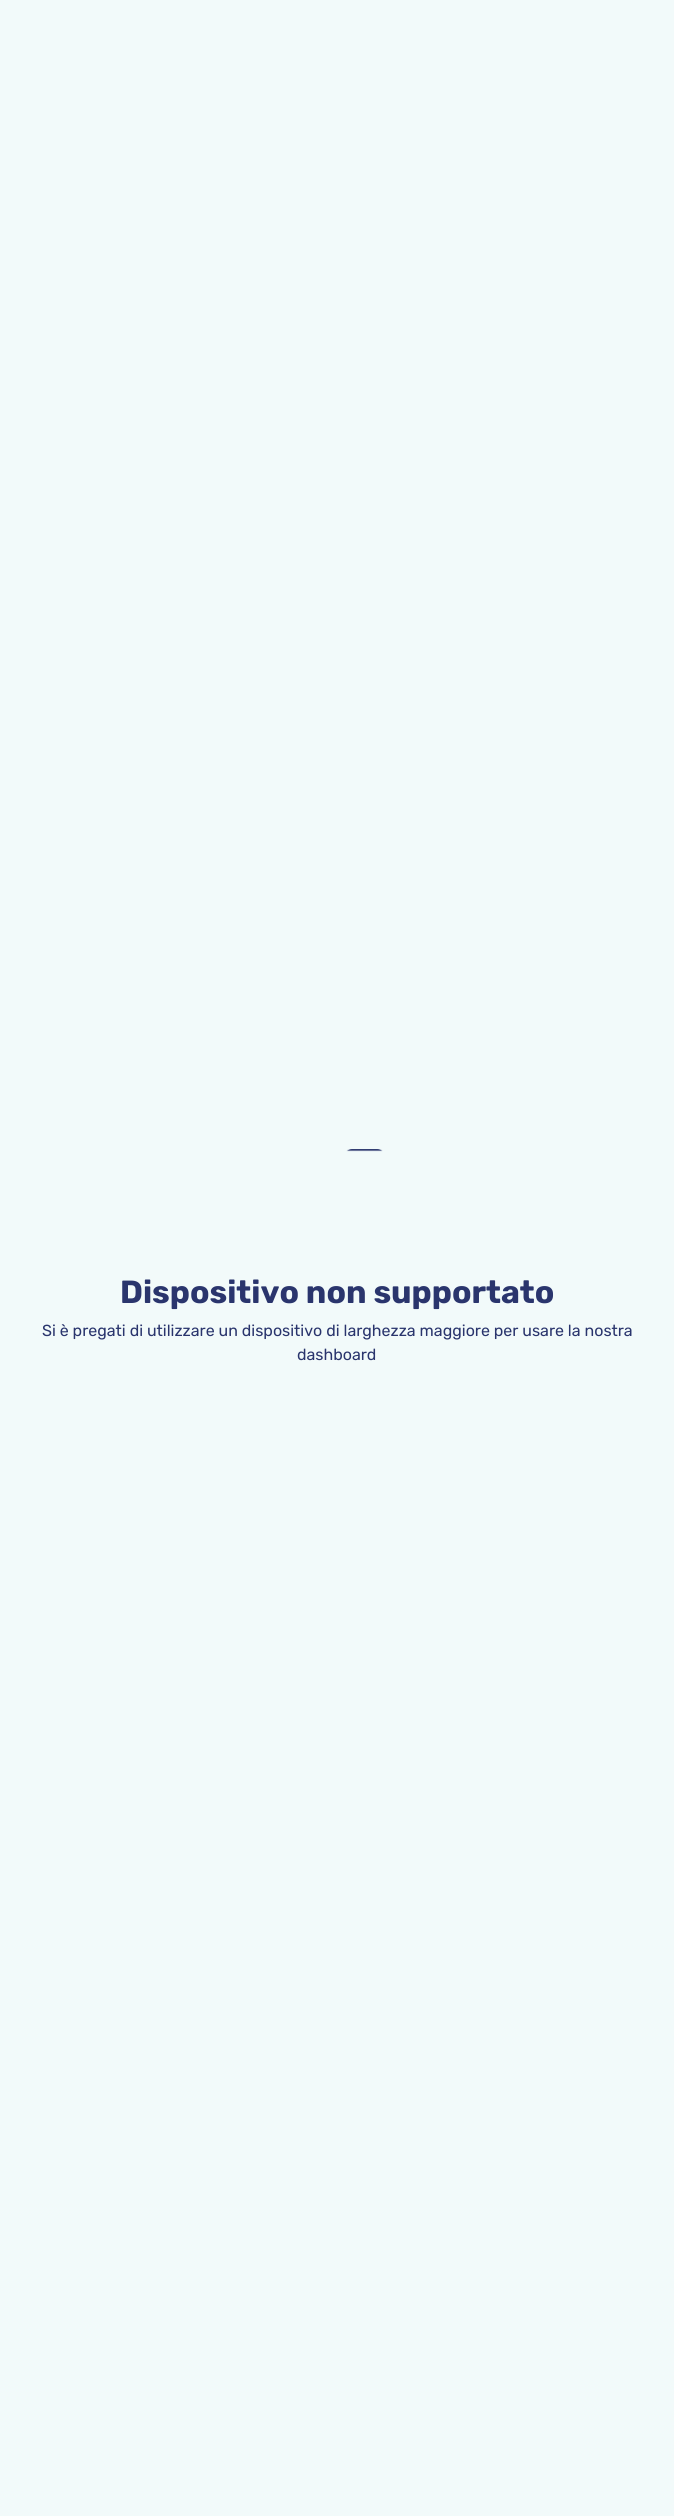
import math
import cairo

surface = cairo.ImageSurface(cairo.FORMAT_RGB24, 674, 2516)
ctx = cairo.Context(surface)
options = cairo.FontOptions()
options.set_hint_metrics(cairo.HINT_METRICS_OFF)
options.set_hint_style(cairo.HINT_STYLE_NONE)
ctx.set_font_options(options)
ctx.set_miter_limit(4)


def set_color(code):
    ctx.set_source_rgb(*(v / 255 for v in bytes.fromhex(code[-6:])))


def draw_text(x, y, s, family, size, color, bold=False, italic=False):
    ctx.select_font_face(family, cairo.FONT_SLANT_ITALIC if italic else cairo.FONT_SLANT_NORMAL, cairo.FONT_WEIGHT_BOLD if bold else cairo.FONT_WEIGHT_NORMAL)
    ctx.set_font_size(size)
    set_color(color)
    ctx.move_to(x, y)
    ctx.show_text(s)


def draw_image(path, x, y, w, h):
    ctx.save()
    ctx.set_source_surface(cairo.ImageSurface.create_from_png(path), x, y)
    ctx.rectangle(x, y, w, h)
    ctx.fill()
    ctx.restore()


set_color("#f2fafa")
ctx.paint()
draw_image("assets/img1.png", 346, 1149, 37, 3)
draw_text(120, 1303, "Dispositivo non supportato", "Rubik", 32, "#2a356d", bold=True)
draw_text(42, 1336, "Si è pregati di utilizzare un dispositivo di larghezza maggiore per usare la nostra", "Rubik", 16, "#2a356d")
draw_text(297, 1360, "dashboard", "Rubik", 16, "#2a356d")
surface.write_to_png("output.png")
